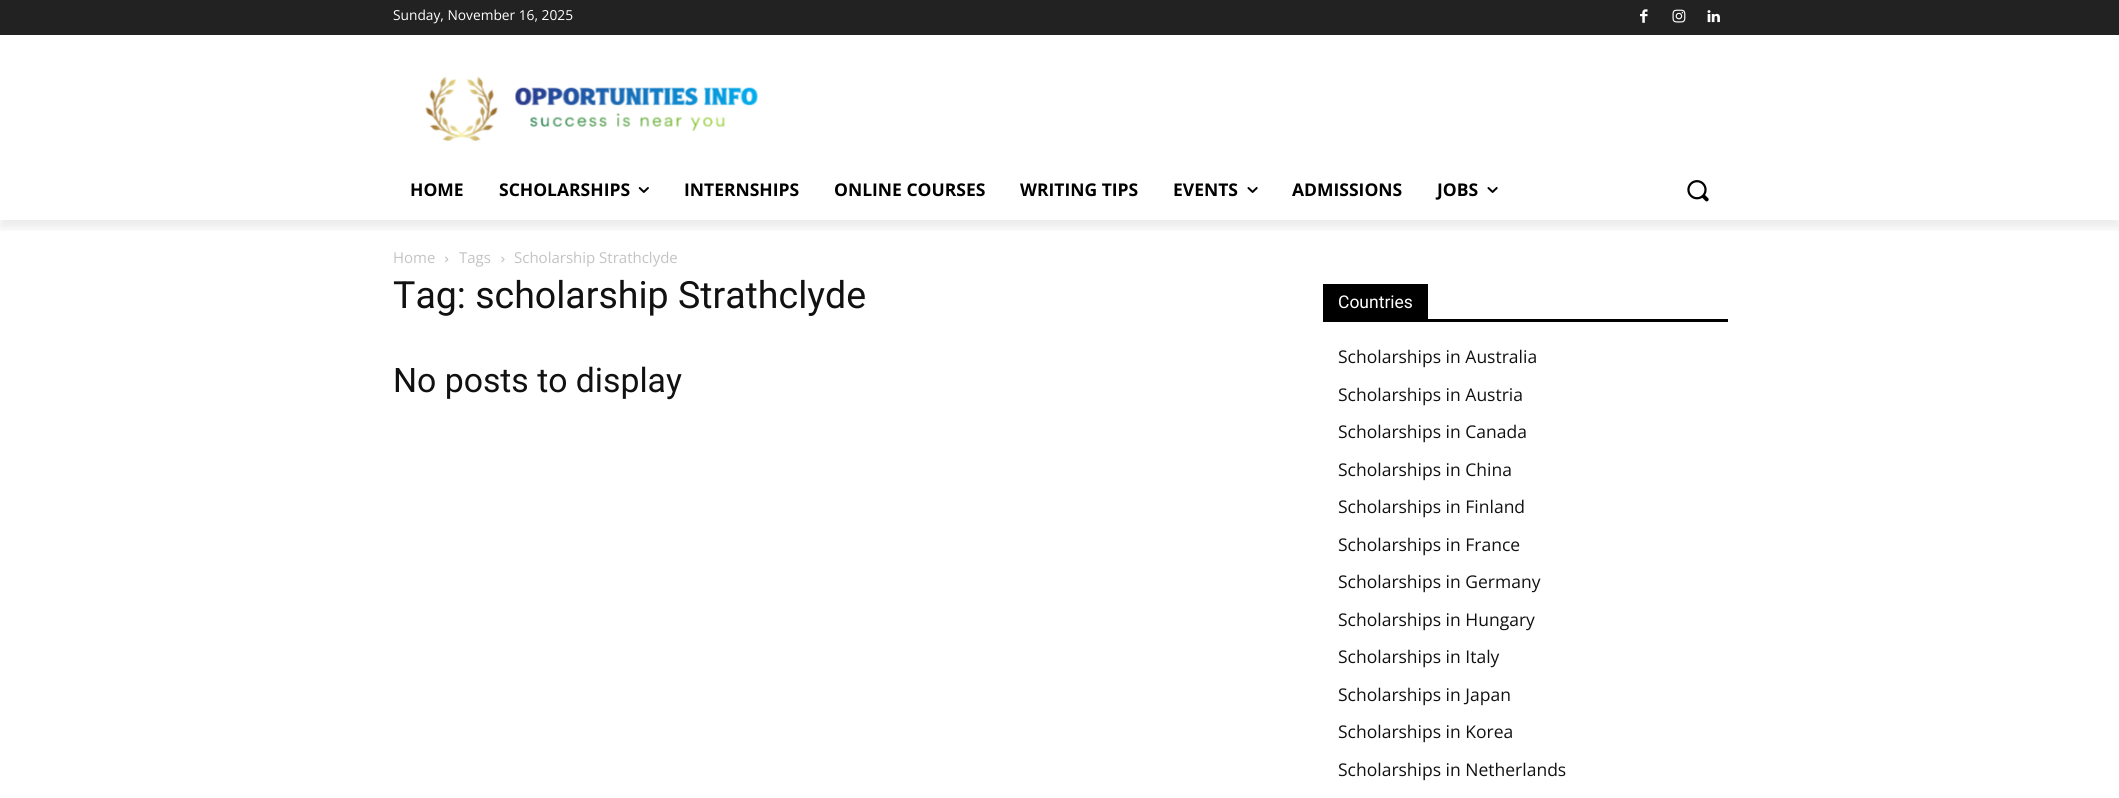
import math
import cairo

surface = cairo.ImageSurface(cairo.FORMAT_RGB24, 2119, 798)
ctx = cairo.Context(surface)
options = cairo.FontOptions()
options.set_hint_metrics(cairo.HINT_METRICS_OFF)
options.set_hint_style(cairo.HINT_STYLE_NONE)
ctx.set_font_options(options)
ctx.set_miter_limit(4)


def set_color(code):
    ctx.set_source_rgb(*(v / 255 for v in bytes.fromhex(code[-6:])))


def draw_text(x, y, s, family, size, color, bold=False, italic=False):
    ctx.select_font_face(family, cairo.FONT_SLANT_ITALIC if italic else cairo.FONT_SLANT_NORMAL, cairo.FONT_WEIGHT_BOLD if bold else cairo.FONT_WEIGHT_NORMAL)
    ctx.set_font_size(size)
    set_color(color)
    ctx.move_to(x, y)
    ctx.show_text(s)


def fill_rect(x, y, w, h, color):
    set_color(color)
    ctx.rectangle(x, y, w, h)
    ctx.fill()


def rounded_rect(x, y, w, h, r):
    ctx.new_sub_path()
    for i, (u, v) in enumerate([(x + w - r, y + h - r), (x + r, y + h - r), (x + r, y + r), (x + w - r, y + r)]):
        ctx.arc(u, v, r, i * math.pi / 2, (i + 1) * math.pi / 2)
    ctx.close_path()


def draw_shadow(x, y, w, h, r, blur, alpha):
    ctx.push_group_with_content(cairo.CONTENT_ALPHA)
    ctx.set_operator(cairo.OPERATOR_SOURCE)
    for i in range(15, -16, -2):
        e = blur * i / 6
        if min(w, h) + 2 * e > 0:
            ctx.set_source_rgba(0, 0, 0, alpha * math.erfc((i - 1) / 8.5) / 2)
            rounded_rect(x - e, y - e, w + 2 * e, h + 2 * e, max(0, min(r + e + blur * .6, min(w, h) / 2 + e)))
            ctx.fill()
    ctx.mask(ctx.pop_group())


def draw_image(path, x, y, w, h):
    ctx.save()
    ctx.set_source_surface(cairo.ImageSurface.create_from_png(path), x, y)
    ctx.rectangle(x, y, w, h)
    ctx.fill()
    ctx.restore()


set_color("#ffffff")
ctx.paint()
fill_rect(0, 0, 2119, 35, "#222222")
draw_image("assets/img1.png", 1640, 9, 8, 14)
draw_image("assets/img2.png", 1672, 9, 14, 14)
draw_image("assets/img3.png", 1707, 10, 13, 13)
draw_image("assets/img4.png", 425, 76, 333, 65)
ctx.save()
ctx.rectangle(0, 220, 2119, 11)
ctx.clip()
set_color("#000000")
draw_shadow(0, 8, 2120, 220, 0, 5, 0.08)
ctx.restore()
draw_text(393, 20, "Sunday, November 16, 2025", "Open Sans", 13.75, "#ffffff")
draw_text(410, 196, "HOME", "Open Sans", 17.5, "#000000", bold=True)
draw_text(499, 196, "SCHOLARSHIPS", "Open Sans", 17.5, "#000000", bold=True)
draw_image("assets/img5.png", 638, 187, 11, 6)
draw_text(684, 196, "INTERNSHIPS", "Open Sans", 17.5, "#000000", bold=True)
draw_text(834, 196, "ONLINE COURSES", "Open Sans", 17.5, "#000000", bold=True)
draw_text(1020, 196, "WRITING TIPS", "Open Sans", 17.5, "#000000", bold=True)
draw_text(1173, 196, "EVENTS", "Open Sans", 17.5, "#000000", bold=True)
draw_image("assets/img6.png", 1247, 187, 11, 6)
draw_text(1292, 196, "ADMISSIONS", "Open Sans", 17.5, "#000000", bold=True)
draw_text(1437, 196, "JOBS", "Open Sans", 17.5, "#000000", bold=True)
draw_image("assets/img6.png", 1487, 187, 11, 6)
draw_image("assets/img7.png", 1687, 180, 22, 22)
draw_text(393, 263, "Home", "Open Sans", 15, "#c3c3c3")
draw_image("assets/img8.png", 445, 256, 4, 7)
draw_text(459, 263, "Tags", "Open Sans", 15, "#c3c3c3")
draw_image("assets/img9.png", 501, 256, 4, 7)
draw_text(514, 263, "Scholarship Strathclyde", "Open Sans", 15, "#c3c3c3")
draw_text(393, 308, "Tag: scholarship Strathclyde", "Roboto", 37.5, "#111111")
draw_text(393, 392, "No posts to display", "Roboto", 33.75, "#111111")
fill_rect(1323, 319, 405, 3, "#000000")
fill_rect(1323, 284, 105, 35, "#000000")
draw_text(1338, 308, "Countries", "Roboto", 17.5, "#ffffff")
draw_text(1338, 363, "Scholarships in Australia", "Open Sans", 17.5, "#111111")
draw_text(1338, 401, "Scholarships in Austria", "Open Sans", 17.5, "#111111")
draw_text(1338, 438, "Scholarships in Canada", "Open Sans", 17.5, "#111111")
draw_text(1338, 476, "Scholarships in China", "Open Sans", 17.5, "#111111")
draw_text(1338, 513, "Scholarships in Finland", "Open Sans", 17.5, "#111111")
draw_text(1338, 551, "Scholarships in France", "Open Sans", 17.5, "#111111")
draw_text(1338, 588, "Scholarships in Germany", "Open Sans", 17.5, "#111111")
draw_text(1338, 626, "Scholarships in Hungary", "Open Sans", 17.5, "#111111")
draw_text(1338, 663, "Scholarships in Italy", "Open Sans", 17.5, "#111111")
draw_text(1338, 701, "Scholarships in Japan", "Open Sans", 17.5, "#111111")
draw_text(1338, 738, "Scholarships in Korea", "Open Sans", 17.5, "#111111")
draw_text(1338, 776, "Scholarships in Netherlands", "Open Sans", 17.5, "#111111")
surface.write_to_png("output.png")
